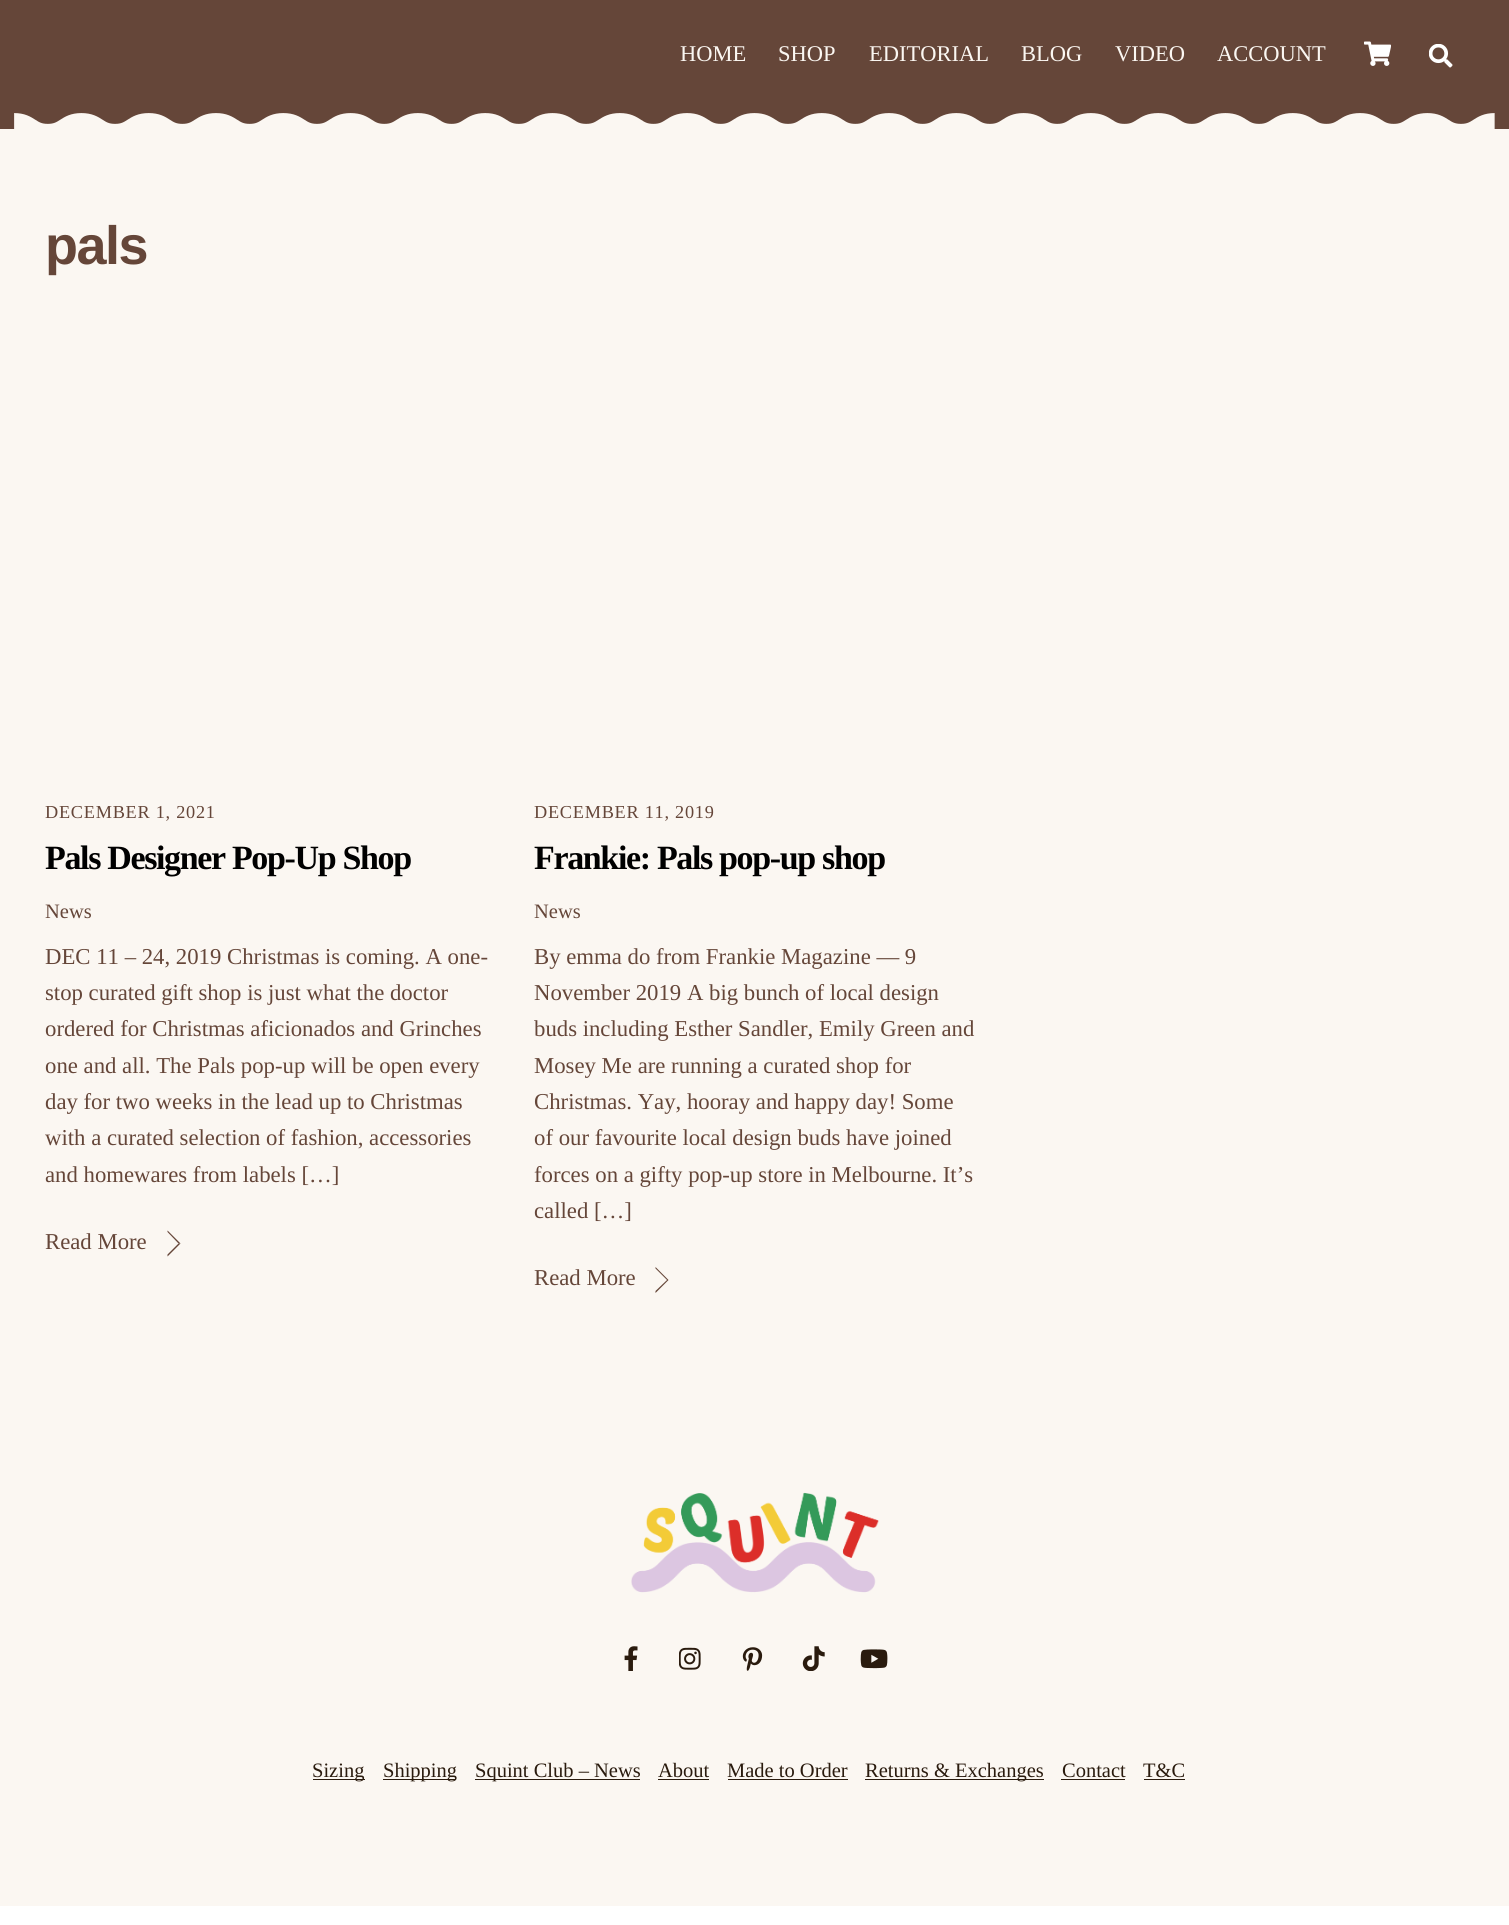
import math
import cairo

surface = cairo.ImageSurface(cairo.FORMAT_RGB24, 1509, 1925)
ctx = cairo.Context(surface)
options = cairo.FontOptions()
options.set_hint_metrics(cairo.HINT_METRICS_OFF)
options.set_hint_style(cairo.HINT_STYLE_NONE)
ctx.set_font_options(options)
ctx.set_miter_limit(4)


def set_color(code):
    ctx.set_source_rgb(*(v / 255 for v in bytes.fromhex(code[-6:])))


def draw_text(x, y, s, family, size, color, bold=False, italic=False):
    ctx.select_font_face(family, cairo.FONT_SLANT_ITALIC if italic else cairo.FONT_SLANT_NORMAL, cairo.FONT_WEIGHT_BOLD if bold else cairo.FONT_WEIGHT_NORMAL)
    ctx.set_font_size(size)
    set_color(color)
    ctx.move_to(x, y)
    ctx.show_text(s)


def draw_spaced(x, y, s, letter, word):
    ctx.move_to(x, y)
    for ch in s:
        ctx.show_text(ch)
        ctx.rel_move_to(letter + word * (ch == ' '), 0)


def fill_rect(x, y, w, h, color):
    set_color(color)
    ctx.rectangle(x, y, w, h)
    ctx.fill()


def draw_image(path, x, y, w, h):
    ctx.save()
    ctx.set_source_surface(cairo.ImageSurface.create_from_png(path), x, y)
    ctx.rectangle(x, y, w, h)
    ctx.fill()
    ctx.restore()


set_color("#ffffff")
ctx.paint()
fill_rect(0, 0, 1509, 129, "#654639")
draw_text(680, 61, "HOME", "Liberation Serif", 22.5, "#fbf7f2")
draw_text(778, 61, "SHOP", "Liberation Serif", 22.5, "#fbf7f2")
draw_text(869, 61, "EDITORIAL", "Liberation Serif", 22.5, "#fbf7f2")
draw_text(1021, 61, "BLOG", "Liberation Serif", 22.5, "#fbf7f2")
draw_text(1115, 61, "VIDEO", "Liberation Serif", 22.5, "#fbf7f2")
draw_text(1217, 61, "ACCOUNT", "Liberation Serif", 22.5, "#fbf7f2")
draw_image("assets/img1.png", 1364, 41, 27, 25)
draw_image("assets/img2.png", 1429, 44, 24, 24)
draw_image("assets/img3.png", 0, 113, 1509, 18)
fill_rect(0, 131, 1509, 1775, "#fbf7f2")
ctx.select_font_face("Liberation Sans", cairo.FONT_SLANT_NORMAL, cairo.FONT_WEIGHT_BOLD)
ctx.set_font_size(54)
set_color("#654639")
draw_spaced(45, 264, "pals", -1.5, 0)
ctx.select_font_face("Liberation Serif")
ctx.set_font_size(18.25)
draw_spaced(45, 818, "DECEMBER 1, 2021", 0.75, 0)
ctx.select_font_face("Liberation Serif", cairo.FONT_SLANT_NORMAL, cairo.FONT_WEIGHT_BOLD)
ctx.set_font_size(34)
set_color("#000000")
draw_spaced(45, 869, "Pals Designer Pop-Up Shop", -1.35, 0)
draw_text(45, 918, "News", "Liberation Serif", 20.5, "#654639")
draw_text(45, 964, "DEC 11 – 24, 2019 Christmas is coming. A one-", "Liberation Serif", 22.75, "#654639")
draw_text(45, 1000, "stop curated gift shop is just what the doctor", "Liberation Serif", 22.75, "#654639")
draw_text(45, 1036, "ordered for Christmas aficionados and Grinches", "Liberation Serif", 22.75, "#654639")
draw_text(45, 1073, "one and all. The Pals pop-up will be open every", "Liberation Serif", 22.75, "#654639")
draw_text(45, 1109, "day for two weeks in the lead up to Christmas", "Liberation Serif", 22.75, "#654639")
draw_text(45, 1145, "with a curated selection of fashion, accessories", "Liberation Serif", 22.75, "#654639")
draw_text(45, 1182, "and homewares from labels […]", "Liberation Serif", 22.75, "#654639")
draw_text(45, 1249, "Read More", "Liberation Serif", 22.75, "#654639")
ctx.new_path()
ctx.move_to(167.5, 1230.5)
ctx.line_to(180.5, 1243.5)
ctx.line_to(178.5, 1243.5)
ctx.line_to(167.5, 1232)
ctx.close_path()
ctx.fill()
ctx.new_path()
ctx.move_to(180.5, 1243.5)
ctx.line_to(167.5, 1256.5)
ctx.line_to(167.5, 1254.5)
ctx.line_to(178.5, 1243.5)
ctx.close_path()
ctx.fill()
ctx.set_font_size(18.25)
draw_spaced(534, 818, "DECEMBER 11, 2019", 0.75, 0)
ctx.select_font_face("Liberation Serif", cairo.FONT_SLANT_NORMAL, cairo.FONT_WEIGHT_BOLD)
ctx.set_font_size(34)
set_color("#000000")
draw_spaced(534, 869, "Frankie: Pals pop-up shop", -1.35, 0)
draw_text(534, 918, "News", "Liberation Serif", 20.5, "#654639")
draw_text(534, 964, "By emma do from Frankie Magazine — 9", "Liberation Serif", 22.75, "#654639")
draw_text(534, 1000, "November 2019 A big bunch of local design", "Liberation Serif", 22.75, "#654639")
draw_text(534, 1036, "buds including Esther Sandler, Emily Green and", "Liberation Serif", 22.75, "#654639")
draw_text(534, 1073, "Mosey Me are running a curated shop for", "Liberation Serif", 22.75, "#654639")
draw_text(534, 1109, "Christmas. Yay, hooray and happy day! Some", "Liberation Serif", 22.75, "#654639")
draw_text(534, 1145, "of our favourite local design buds have joined", "Liberation Serif", 22.75, "#654639")
draw_text(534, 1182, "forces on a gifty pop-up store in Melbourne. It’s", "Liberation Serif", 22.75, "#654639")
draw_text(534, 1218, "called […]", "Liberation Serif", 22.75, "#654639")
draw_text(534, 1285, "Read More", "Liberation Serif", 22.75, "#654639")
ctx.new_path()
ctx.move_to(655.5, 1267)
ctx.line_to(668.5, 1280)
ctx.line_to(667, 1280)
ctx.line_to(655.5, 1268.5)
ctx.close_path()
ctx.move_to(668.5, 1280)
ctx.line_to(655.5, 1293)
ctx.line_to(655.5, 1291)
ctx.line_to(667, 1280)
ctx.close_path()
ctx.fill()
draw_image("assets/img4.png", 631, 1492, 248, 101)
draw_image("assets/img5.png", 624, 1646, 14, 25)
draw_image("assets/img6.png", 679, 1647, 22, 23)
draw_image("assets/img7.png", 742, 1647, 21, 24)
draw_image("assets/img8.png", 802, 1646, 23, 25)
draw_image("assets/img9.png", 860, 1649, 28, 20)
fill_rect(313, 1779, 52, 1, "#2a1b0e")
draw_text(312, 1777, "Sizing", "Liberation Serif", 20.5, "#2a1b0e")
fill_rect(383, 1779, 73, 1, "#2a1b0e")
draw_text(383, 1777, "Shipping", "Liberation Serif", 20.5, "#2a1b0e")
fill_rect(475, 1779, 165, 1, "#2a1b0e")
draw_text(475, 1777, "Squint Club – News", "Liberation Serif", 20.5, "#2a1b0e")
draw_text(658, 1777, "About", "Liberation Serif", 20.5, "#2a1b0e")
fill_rect(658, 1779, 51, 1, "#2a1b0e")
draw_text(727, 1777, "Made to Order", "Liberation Serif", 20.5, "#2a1b0e")
fill_rect(728, 1779, 120, 1, "#2a1b0e")
fill_rect(865, 1779, 179, 1, "#2a1b0e")
draw_text(865, 1777, "Returns & Exchanges", "Liberation Serif", 20.5, "#2a1b0e")
draw_text(1062, 1777, "Contact", "Liberation Serif", 20.5, "#2a1b0e")
fill_rect(1061, 1779, 64, 1, "#2a1b0e")
draw_text(1143, 1777, "T&C", "Liberation Serif", 20.5, "#2a1b0e")
fill_rect(1144, 1779, 41, 1, "#2a1b0e")
surface.write_to_png("output.png")
